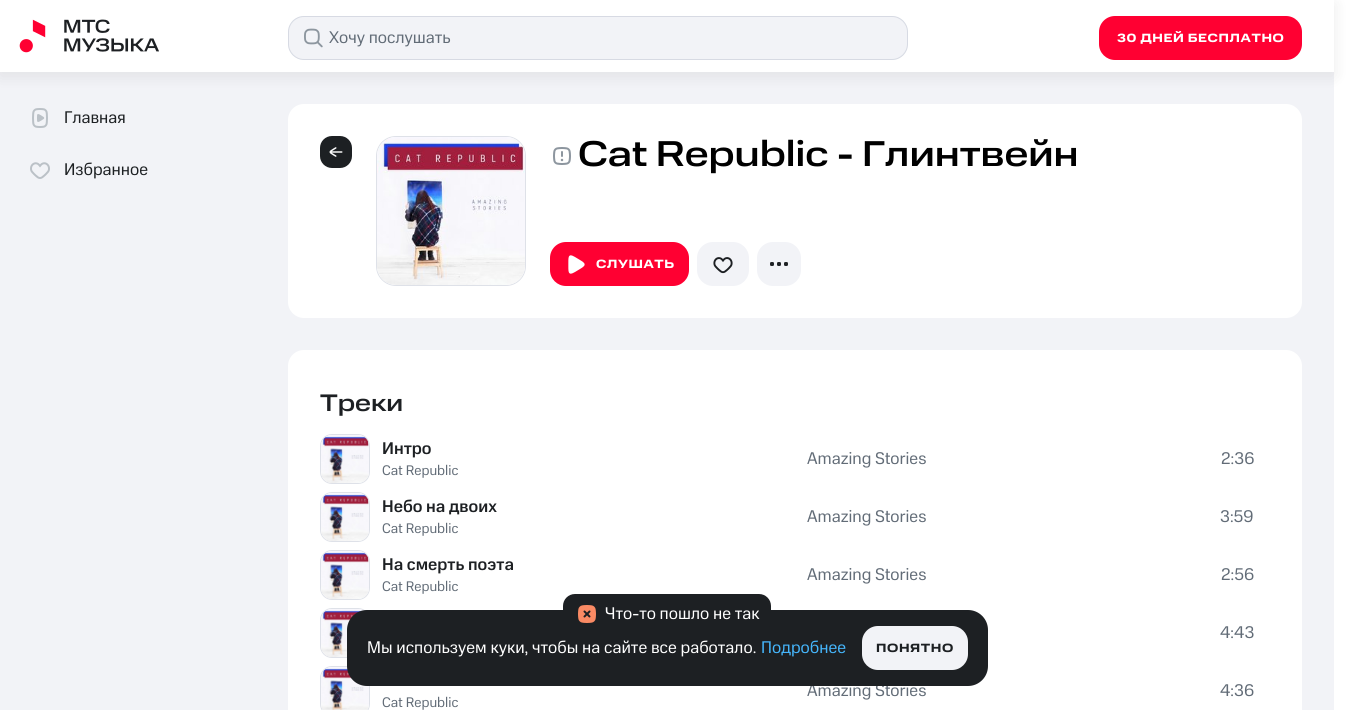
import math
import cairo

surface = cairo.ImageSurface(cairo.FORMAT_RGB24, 1349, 710)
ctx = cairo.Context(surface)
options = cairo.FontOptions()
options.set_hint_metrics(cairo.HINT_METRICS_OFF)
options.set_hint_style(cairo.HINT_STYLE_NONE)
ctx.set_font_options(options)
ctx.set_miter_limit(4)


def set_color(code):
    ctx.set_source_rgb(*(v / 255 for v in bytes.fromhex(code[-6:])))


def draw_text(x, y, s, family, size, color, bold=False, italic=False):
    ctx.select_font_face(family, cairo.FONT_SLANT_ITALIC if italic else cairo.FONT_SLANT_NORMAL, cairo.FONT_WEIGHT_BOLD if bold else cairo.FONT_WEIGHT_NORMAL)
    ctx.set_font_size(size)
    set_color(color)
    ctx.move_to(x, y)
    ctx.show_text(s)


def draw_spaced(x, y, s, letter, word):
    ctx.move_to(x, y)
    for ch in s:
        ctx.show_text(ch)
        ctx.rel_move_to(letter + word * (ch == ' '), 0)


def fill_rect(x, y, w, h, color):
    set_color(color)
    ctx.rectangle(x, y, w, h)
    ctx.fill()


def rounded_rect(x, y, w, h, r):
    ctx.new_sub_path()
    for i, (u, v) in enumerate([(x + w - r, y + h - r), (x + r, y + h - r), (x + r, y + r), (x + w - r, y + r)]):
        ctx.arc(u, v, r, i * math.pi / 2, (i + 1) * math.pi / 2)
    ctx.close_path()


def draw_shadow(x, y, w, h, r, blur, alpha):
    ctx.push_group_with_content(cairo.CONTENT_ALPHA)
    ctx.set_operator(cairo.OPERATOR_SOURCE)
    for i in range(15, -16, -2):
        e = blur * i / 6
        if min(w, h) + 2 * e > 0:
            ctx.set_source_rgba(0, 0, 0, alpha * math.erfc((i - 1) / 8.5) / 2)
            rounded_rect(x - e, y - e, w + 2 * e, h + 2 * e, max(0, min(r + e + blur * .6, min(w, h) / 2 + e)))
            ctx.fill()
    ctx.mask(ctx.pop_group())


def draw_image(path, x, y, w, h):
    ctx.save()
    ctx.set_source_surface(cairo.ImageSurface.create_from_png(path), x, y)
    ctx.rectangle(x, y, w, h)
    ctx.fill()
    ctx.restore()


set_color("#ffffff")
ctx.paint()
fill_rect(0, 72, 1334, 638, "#f2f3f7")
ctx.save()
ctx.set_fill_rule(cairo.FILL_RULE_EVEN_ODD)
ctx.new_path()
ctx.move_to(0, 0)
ctx.line_to(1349, 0)
ctx.line_to(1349, 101)
ctx.line_to(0, 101)
ctx.close_path()
ctx.move_to(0, 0)
ctx.line_to(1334, 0)
ctx.line_to(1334, 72)
ctx.line_to(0, 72)
ctx.close_path()
ctx.clip()
set_color("#000000")
draw_shadow(0, 4, 1334, 72, 0, 8, 0.08)
ctx.restore()
draw_image("assets/img1.png", 19, 19, 140, 34)
rounded_rect(288, 16, 620, 44, 16)
ctx.fill()
rounded_rect(288.5, 16.5, 619, 43, 15.5)
ctx.set_source_rgba(0.737, 0.765, 0.816, 0.5)
ctx.set_line_width(1)
ctx.stroke()
draw_image("assets/img2.png", 304, 28, 19, 20)
draw_text(329, 43, "Хочу послушать", "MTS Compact", 17, "#626c77")
set_color("#ff0032")
rounded_rect(1099, 16, 203, 44, 16)
ctx.fill()
ctx.select_font_face("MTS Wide", cairo.FONT_SLANT_NORMAL, cairo.FONT_WEIGHT_BOLD)
ctx.set_font_size(12)
set_color("#ffffff")
draw_spaced(1117, 42, "30 ДНЕЙ БЕСПЛАТНО", 0.6, 0)
draw_image("assets/img3.png", 32, 108, 16, 20)
draw_text(64, 123, "Главная", "MTS Compact", 17, "#1d2023")
draw_image("assets/img4.png", 30, 162, 20, 17)
draw_text(64, 175, "Избранное", "MTS Compact", 17, "#1d2023")
set_color("#ffffff")
rounded_rect(288, 104, 1014, 214, 16)
ctx.fill()
set_color("#1d2023")
rounded_rect(320, 136, 32, 32, 12)
ctx.fill()
draw_image("assets/img5.png", 329, 147, 14, 10)
rounded_rect(376.5, 136.5, 149, 149, 19.5)
set_color("#dee1e8")
ctx.stroke()
draw_image("assets/img6.png", 377, 137, 148, 148)
draw_image("assets/img7.png", 553, 147, 18, 18)
draw_text(578, 166, "Cat Republic - Глинтвейн", "MTS Wide Medium", 36, "#000000")
set_color("#ff0032")
rounded_rect(550, 242, 139, 44, 16)
ctx.fill()
draw_image("assets/img8.png", 568, 255, 17, 19)
ctx.select_font_face("MTS Wide", cairo.FONT_SLANT_NORMAL, cairo.FONT_WEIGHT_BOLD)
ctx.set_font_size(12)
set_color("#ffffff")
draw_spaced(596, 268, "СЛУШАТЬ", 0.6, 0)
set_color("#f2f3f7")
rounded_rect(697, 242, 52, 44, 16)
ctx.fill()
draw_image("assets/img9.png", 713, 257, 20, 17)
rounded_rect(757, 242, 44, 44, 16)
ctx.fill()
draw_image("assets/img10.png", 770, 262, 18, 4)
set_color("#ffffff")
rounded_rect(288, 350, 1014, 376, 16)
ctx.fill()
draw_text(320, 411, "Треки", "MTS Wide Medium", 24, "#1d2023")
rounded_rect(320.5, 434.5, 49, 49, 11.5)
set_color("#dee1e8")
ctx.stroke()
draw_image("assets/img11.png", 321, 435, 48, 48)
draw_text(382, 454, "Интро", "MTS Compact Medium", 17, "#1d2023")
draw_text(382, 475, "Cat Republic", "MTS Compact", 14, "#626c77")
draw_text(807, 464, "Amazing Stories", "MTS Compact", 17, "#626c77")
draw_text(1221, 464, "2:36", "MTS Compact", 17, "#626c77")
rounded_rect(320.5, 492.5, 49, 49, 11.5)
set_color("#dee1e8")
ctx.stroke()
draw_image("assets/img12.png", 321, 493, 48, 48)
draw_text(382, 512, "Небо на двоих", "MTS Compact Medium", 17, "#1d2023")
draw_text(382, 533, "Cat Republic", "MTS Compact", 14, "#626c77")
draw_text(807, 522, "Amazing Stories", "MTS Compact", 17, "#626c77")
draw_text(1220, 522, "3:59", "MTS Compact", 17, "#626c77")
rounded_rect(320.5, 550.5, 49, 49, 11.5)
set_color("#dee1e8")
ctx.stroke()
draw_image("assets/img11.png", 321, 551, 48, 48)
draw_text(382, 570, "На смерть поэта", "MTS Compact Medium", 17, "#1d2023")
draw_text(382, 591, "Cat Republic", "MTS Compact", 14, "#626c77")
draw_text(807, 580, "Amazing Stories", "MTS Compact", 17, "#626c77")
draw_text(1221, 580, "2:56", "MTS Compact", 17, "#626c77")
rounded_rect(320.5, 608.5, 49, 49, 11.5)
set_color("#dee1e8")
ctx.stroke()
draw_image("assets/img13.png", 321, 609, 44, 48)
draw_text(1220, 638, "4:43", "MTS Compact", 17, "#626c77")
draw_text(807, 696, "Amazing Stories", "MTS Compact", 17, "#626c77")
draw_text(1220, 696, "4:36", "MTS Compact", 17, "#626c77")
rounded_rect(320.5, 666.5, 49, 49, 11.5)
set_color("#dee1e8")
ctx.stroke()
draw_image("assets/img14.png", 321, 667, 48, 43)
draw_text(382, 707, "Cat Republic", "MTS Compact", 14, "#626c77")
set_color("#1d2023")
rounded_rect(347, 610, 641, 76, 20)
ctx.fill()
rounded_rect(563, 594, 208, 40, 12)
ctx.fill()
draw_image("assets/img15.png", 578, 605, 18, 18)
draw_text(605, 619, "Что-то пошло не так", "MTS Compact", 17, "#ffffff")
draw_text(367, 653, "Мы используем куки, чтобы на сайте все работало.", "MTS Compact", 17, "#ffffff")
draw_text(761, 653, "Подробнее", "MTS Compact", 17, "#45b6fc")
set_color("#f2f3f7")
rounded_rect(862, 626, 106, 44, 16)
ctx.fill()
ctx.select_font_face("MTS Wide", cairo.FONT_SLANT_NORMAL, cairo.FONT_WEIGHT_BOLD)
ctx.set_font_size(12)
set_color("#1d2023")
draw_spaced(876, 652, "ПОНЯТНО", 0.6, 0)
surface.write_to_png("output.png")
